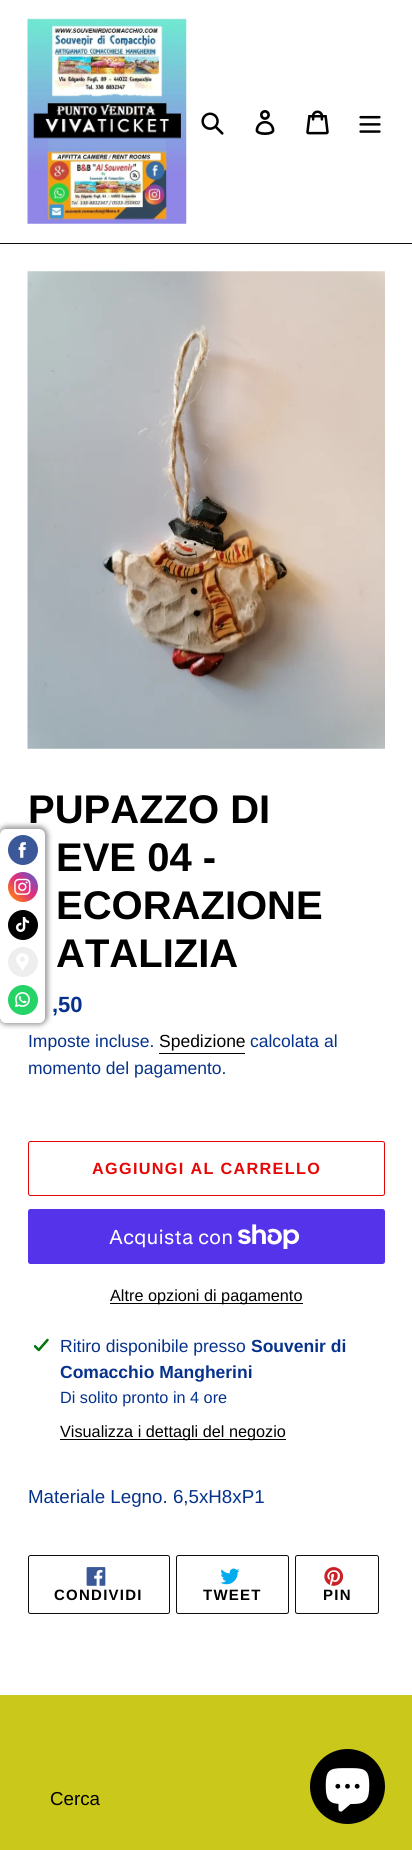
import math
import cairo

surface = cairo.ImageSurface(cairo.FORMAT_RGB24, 412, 1850)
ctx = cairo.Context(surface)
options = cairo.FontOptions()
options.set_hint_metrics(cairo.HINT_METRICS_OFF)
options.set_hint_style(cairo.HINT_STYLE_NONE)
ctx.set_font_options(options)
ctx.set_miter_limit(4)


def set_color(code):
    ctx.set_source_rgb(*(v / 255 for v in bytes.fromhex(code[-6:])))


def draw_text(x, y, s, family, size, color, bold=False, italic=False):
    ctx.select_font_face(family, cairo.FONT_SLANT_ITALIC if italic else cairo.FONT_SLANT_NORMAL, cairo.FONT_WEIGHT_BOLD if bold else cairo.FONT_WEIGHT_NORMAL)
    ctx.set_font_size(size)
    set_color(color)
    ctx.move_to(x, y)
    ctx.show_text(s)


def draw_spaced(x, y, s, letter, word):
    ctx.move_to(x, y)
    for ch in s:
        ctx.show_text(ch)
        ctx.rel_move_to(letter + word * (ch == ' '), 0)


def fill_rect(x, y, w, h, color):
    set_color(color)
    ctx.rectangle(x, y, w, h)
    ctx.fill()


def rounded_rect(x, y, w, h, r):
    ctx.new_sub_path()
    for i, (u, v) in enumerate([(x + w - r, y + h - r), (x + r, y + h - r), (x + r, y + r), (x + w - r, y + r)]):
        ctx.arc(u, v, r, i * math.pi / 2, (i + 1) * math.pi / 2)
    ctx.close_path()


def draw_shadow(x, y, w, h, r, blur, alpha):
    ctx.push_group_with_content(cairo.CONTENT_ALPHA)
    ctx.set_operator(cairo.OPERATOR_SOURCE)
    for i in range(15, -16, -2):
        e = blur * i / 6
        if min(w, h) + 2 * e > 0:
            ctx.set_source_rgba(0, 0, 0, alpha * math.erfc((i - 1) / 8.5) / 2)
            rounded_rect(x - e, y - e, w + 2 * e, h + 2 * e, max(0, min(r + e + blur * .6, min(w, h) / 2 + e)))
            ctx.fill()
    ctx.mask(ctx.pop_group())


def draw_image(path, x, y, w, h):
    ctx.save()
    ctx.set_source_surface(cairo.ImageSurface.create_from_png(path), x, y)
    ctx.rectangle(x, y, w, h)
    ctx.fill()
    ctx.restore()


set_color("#ffffff")
ctx.paint()
fill_rect(0, 243, 412, 1, "#100c0c")
draw_image("assets/img1.png", 27, 18, 160, 206)
draw_image("assets/img2.png", 201, 112, 23, 23)
draw_image("assets/img3.png", 255, 110, 20, 25)
draw_image("assets/img4.png", 306, 110, 23, 25)
draw_image("assets/img5.png", 359, 115, 22, 18)
draw_image("assets/img6.png", 27, 271, 358, 478)
draw_text(28, 823, "PUPAZZO DI", "Liberation Sans", 40, "#000000", bold=True)
draw_text(56, 871, "EVE 04 -", "Liberation Sans", 40, "#000000", bold=True)
draw_text(56, 919, "ECORAZIONE", "Liberation Sans", 40, "#000000", bold=True)
draw_text(56, 967, "ATALIZIA", "Liberation Sans", 40, "#000000", bold=True)
draw_text(52, 1012, ",50", "Liberation Sans", 22, "#06328c", bold=True)
draw_text(28, 1047, "Imposte incluse.", "Liberation Sans", 17.5, "#06328c")
draw_text(159, 1047, "Spedizione", "Liberation Sans", 17.5, "#000000")
fill_rect(159, 1053, 86, 1, "#000000")
draw_text(250, 1047, "calcolata al", "Liberation Sans", 17.5, "#06328c")
draw_text(28, 1074, "momento del pagamento.", "Liberation Sans", 17.5, "#06328c")
rounded_rect(28.5, 1141.5, 356, 54, 2)
set_color("#e60606")
ctx.set_line_width(1)
ctx.stroke()
ctx.select_font_face("Liberation Sans", cairo.FONT_SLANT_NORMAL, cairo.FONT_WEIGHT_BOLD)
ctx.set_font_size(16.25)
draw_spaced(92, 1174, "AGGIUNGI AL CARRELLO", 1.3, 0)
set_color("#5433eb")
rounded_rect(28, 1209, 357, 55, 2.5)
ctx.fill()
draw_text(109, 1244, "Acquista con", "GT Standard", 20, "#ffffff")
draw_image("assets/img7.png", 238, 1224, 62, 25)
fill_rect(110, 1303, 193, 1, "#000000")
draw_text(110, 1301, "Altre opzioni di pagamento", "Liberation Sans", 16.25, "#000000")
draw_image("assets/img8.png", 34, 1338, 15, 14)
draw_text(60, 1352, "Ritiro disponibile presso", "Liberation Sans", 17.5, "#06328c")
draw_text(251, 1352, "Souvenir di", "Liberation Sans", 17.5, "#06328c", bold=True)
draw_text(60, 1378, "Comacchio Mangherini", "Liberation Sans", 17.5, "#06328c", bold=True)
draw_text(60, 1403, "Di solito pronto in 4 ore", "Liberation Sans", 16.25, "#06328c")
fill_rect(60, 1439, 226, 1, "#000000")
draw_text(60, 1437, "Visualizza i dettagli del negozio", "Liberation Sans", 16.25, "#000000")
draw_text(28, 1503, "Materiale Legno. 6,5xH8xP1", "Liberation Sans", 18.75, "#06328c")
rounded_rect(28.5, 1555.5, 141, 58, 2)
set_color("#100c0c")
ctx.stroke()
draw_image("assets/img9.png", 86, 1567, 20, 19)
ctx.select_font_face("Liberation Sans", cairo.FONT_SLANT_NORMAL, cairo.FONT_WEIGHT_BOLD)
ctx.set_font_size(15)
set_color("#000000")
draw_spaced(54, 1600, "CONDIVIDI", 1.25, 0)
rounded_rect(176.5, 1555.5, 112, 58, 2)
set_color("#100c0c")
ctx.stroke()
draw_image("assets/img10.png", 220, 1568, 20, 17)
set_color("#000000")
draw_spaced(203, 1600, "TWEET", 1.25, 0)
rounded_rect(295.5, 1555.5, 83, 58, 2)
set_color("#100c0c")
ctx.stroke()
draw_image("assets/img11.png", 324, 1567, 20, 19)
set_color("#000000")
draw_spaced(323, 1600, "PIN", 1.25, 0)
fill_rect(0, 1695, 412, 155, "#cac81b")
draw_text(50, 1805, "Cerca", "Liberation Sans", 18.75, "#000000")
set_color("#9e9e9e")
draw_shadow(-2, 826, 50, 199, 9, 2.5, 1)
set_color("#ffffff")
rounded_rect(0, 829, 45, 194, 6)
ctx.fill()
draw_image("assets/img12.png", 8, 835, 30, 30)
draw_image("assets/img13.png", 8, 872, 30, 30)
draw_image("assets/img14.png", 8, 910, 30, 30)
draw_image("assets/img15.png", 8, 947, 30, 30)
draw_image("assets/img16.png", 8, 985, 30, 30)
set_color("#000000")
ctx.arc(347.5, 1786.5, 37.5, 0, 2 * math.pi)
ctx.fill()
draw_image("assets/img17.png", 325, 1768, 45, 44)
surface.write_to_png("output.png")
